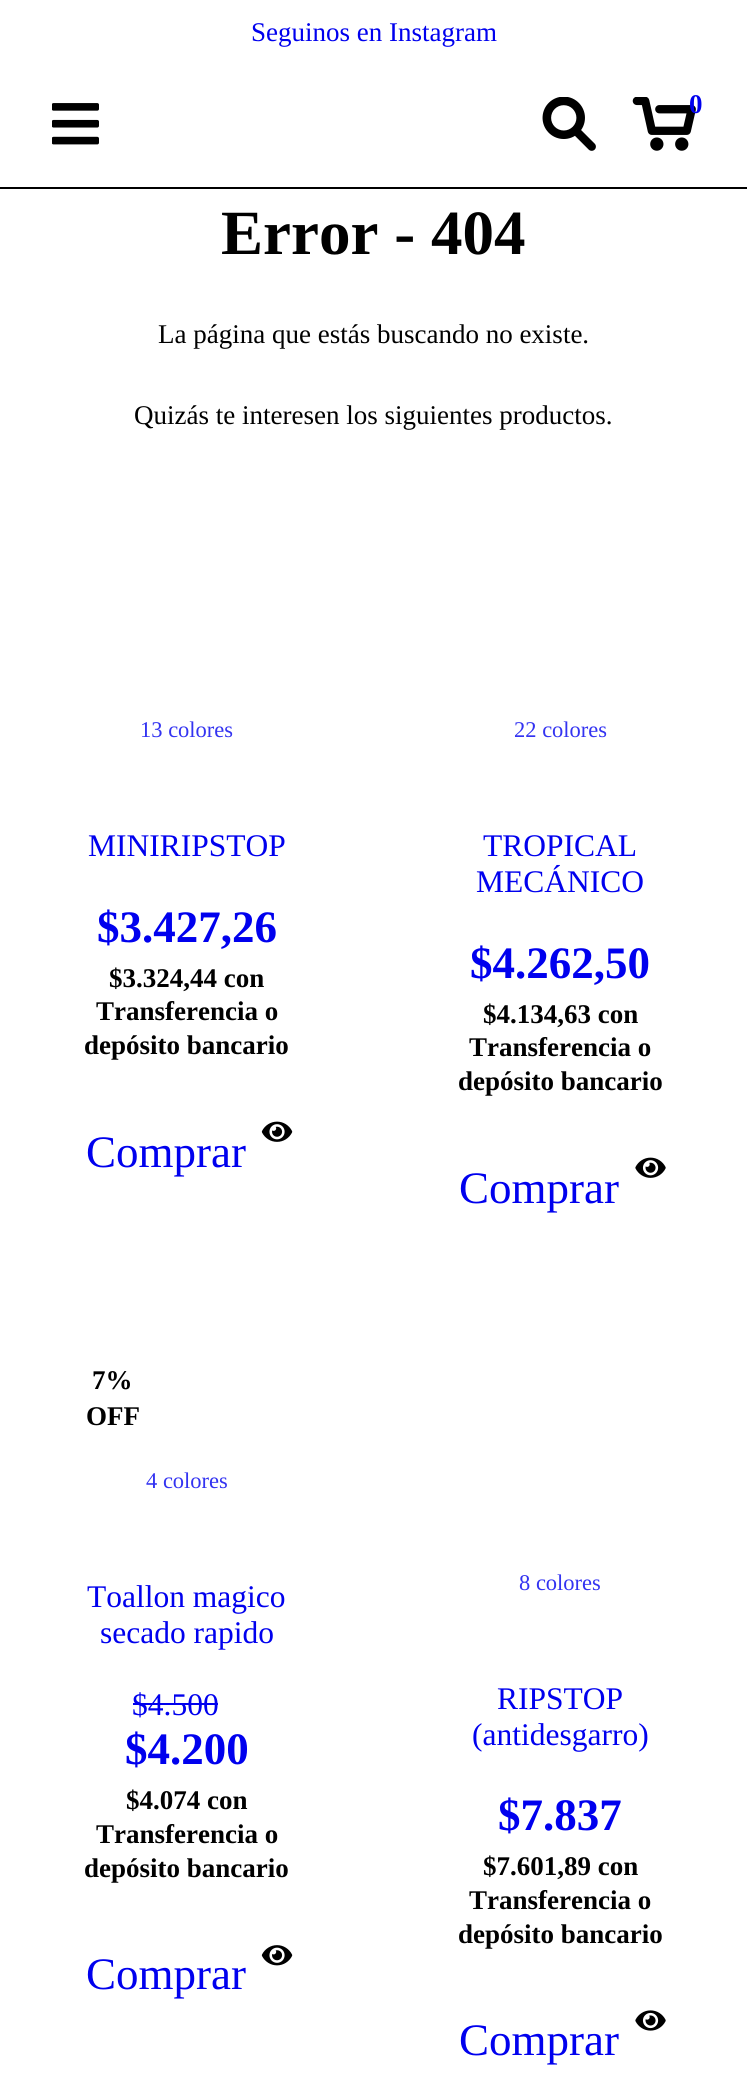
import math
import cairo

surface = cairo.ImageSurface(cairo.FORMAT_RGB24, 747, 2089)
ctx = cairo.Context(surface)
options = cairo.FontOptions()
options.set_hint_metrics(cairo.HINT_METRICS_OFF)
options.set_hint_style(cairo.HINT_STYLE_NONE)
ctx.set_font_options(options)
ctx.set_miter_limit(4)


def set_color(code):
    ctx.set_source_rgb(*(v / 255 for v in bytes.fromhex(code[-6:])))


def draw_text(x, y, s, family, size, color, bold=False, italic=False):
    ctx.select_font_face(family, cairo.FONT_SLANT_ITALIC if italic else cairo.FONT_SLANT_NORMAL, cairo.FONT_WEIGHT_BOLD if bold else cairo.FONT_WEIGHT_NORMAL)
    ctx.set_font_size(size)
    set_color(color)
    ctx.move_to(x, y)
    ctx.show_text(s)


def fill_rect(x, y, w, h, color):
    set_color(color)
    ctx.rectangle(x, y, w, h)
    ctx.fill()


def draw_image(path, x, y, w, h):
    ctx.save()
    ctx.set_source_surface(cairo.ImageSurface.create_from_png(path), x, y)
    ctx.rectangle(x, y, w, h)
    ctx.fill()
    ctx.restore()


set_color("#ffffff")
ctx.paint()
draw_text(251, 41, "Seguinos en Instagram", "Liberation Serif", 27, "#0000ee")
draw_image("assets/img1.png", 52, 103, 47, 42)
draw_image("assets/img2.png", 542, 97, 54, 54)
draw_image("assets/img3.png", 632, 97, 64, 54)
draw_text(689, 113, "0", "Liberation Serif", 27, "#0000ee", bold=True)
fill_rect(0, 187, 747, 2, "#000000")
draw_text(221, 254, "Error - 404", "Liberation Serif", 63, "#000000", bold=True)
draw_text(158, 343, "La página que estás buscando no existe.", "Liberation Serif", 27, "#000000")
draw_text(134, 424, "Quizás te interesen los siguientes productos.", "Liberation Serif", 27, "#000000")
draw_text(140, 737, "13 colores", "Liberation Serif", 22.5, "#3333f1")
draw_text(88, 856, "MINIRIPSTOP", "Liberation Serif", 31.5, "#0000ee")
draw_text(97, 942, "$3.427,26", "Liberation Serif", 45, "#0000ee", bold=True)
draw_text(109, 987, "$3.324,44 con", "Liberation Serif", 27, "#000000", bold=True)
draw_text(96, 1020, "Transferencia o", "Liberation Serif", 27, "#000000", bold=True)
draw_text(84, 1054, "depósito bancario", "Liberation Serif", 27, "#000000", bold=True)
draw_image("assets/img4.png", 261, 1121, 32, 21)
draw_text(86, 1167, "Comprar", "Liberation Serif", 45, "#0000ee")
draw_text(514, 737, "22 colores", "Liberation Serif", 22.5, "#3333f1")
draw_text(483, 856, "TROPICAL", "Liberation Serif", 31.5, "#0000ee")
draw_text(476, 892, "MECÁNICO", "Liberation Serif", 31.5, "#0000ee")
draw_text(470, 978, "$4.262,50", "Liberation Serif", 45, "#0000ee", bold=True)
draw_text(483, 1023, "$4.134,63 con", "Liberation Serif", 27, "#000000", bold=True)
draw_text(469, 1056, "Transferencia o", "Liberation Serif", 27, "#000000", bold=True)
draw_text(458, 1090, "depósito bancario", "Liberation Serif", 27, "#000000", bold=True)
draw_image("assets/img5.png", 635, 1157, 31, 21)
draw_text(459, 1203, "Comprar", "Liberation Serif", 45, "#0000ee")
draw_text(92, 1389, "7%", "Liberation Serif", 27, "#000000", bold=True)
draw_text(86, 1425, "OFF", "Liberation Serif", 27, "#000000", bold=True)
draw_text(146, 1488, "4 colores", "Liberation Serif", 22.5, "#3333f1")
draw_text(87, 1607, "Toallon magico", "Liberation Serif", 31.5, "#0000ee")
draw_text(100, 1643, "secado rapido", "Liberation Serif", 31.5, "#0000ee")
draw_text(132, 1715, "$4.500", "Liberation Serif", 31.5, "#0000ee")
fill_rect(133, 1703, 85, 2, "#0000ee")
draw_text(125, 1764, "$4.200", "Liberation Serif", 45, "#0000ee", bold=True)
draw_text(126, 1809, "$4.074 con", "Liberation Serif", 27, "#000000", bold=True)
draw_text(96, 1843, "Transferencia o", "Liberation Serif", 27, "#000000", bold=True)
draw_text(84, 1877, "depósito bancario", "Liberation Serif", 27, "#000000", bold=True)
draw_image("assets/img6.png", 261, 1945, 32, 21)
draw_text(86, 1989, "Comprar", "Liberation Serif", 45, "#0000ee")
draw_text(519, 1590, "8 colores", "Liberation Serif", 22.5, "#3333f1")
draw_text(497, 1709, "RIPSTOP", "Liberation Serif", 31.5, "#0000ee")
draw_text(472, 1745, "(antidesgarro)", "Liberation Serif", 31.5, "#0000ee")
draw_text(498, 1830, "$7.837", "Liberation Serif", 45, "#0000ee", bold=True)
draw_text(483, 1875, "$7.601,89 con", "Liberation Serif", 27, "#000000", bold=True)
draw_text(469, 1909, "Transferencia o", "Liberation Serif", 27, "#000000", bold=True)
draw_text(458, 1943, "depósito bancario", "Liberation Serif", 27, "#000000", bold=True)
draw_image("assets/img7.png", 635, 2010, 31, 21)
draw_text(459, 2055, "Comprar", "Liberation Serif", 45, "#0000ee")
surface.write_to_png("output.png")
